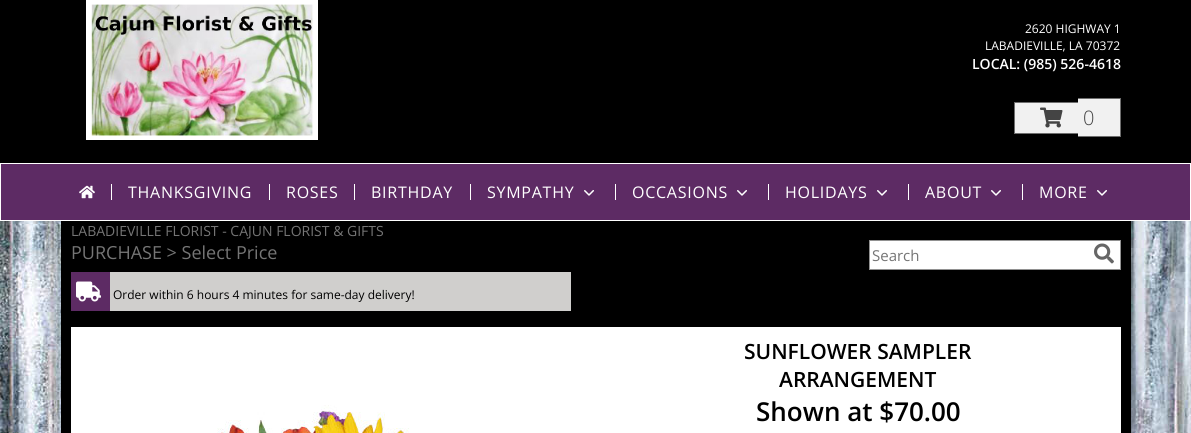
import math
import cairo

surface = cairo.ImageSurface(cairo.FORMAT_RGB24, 1191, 433)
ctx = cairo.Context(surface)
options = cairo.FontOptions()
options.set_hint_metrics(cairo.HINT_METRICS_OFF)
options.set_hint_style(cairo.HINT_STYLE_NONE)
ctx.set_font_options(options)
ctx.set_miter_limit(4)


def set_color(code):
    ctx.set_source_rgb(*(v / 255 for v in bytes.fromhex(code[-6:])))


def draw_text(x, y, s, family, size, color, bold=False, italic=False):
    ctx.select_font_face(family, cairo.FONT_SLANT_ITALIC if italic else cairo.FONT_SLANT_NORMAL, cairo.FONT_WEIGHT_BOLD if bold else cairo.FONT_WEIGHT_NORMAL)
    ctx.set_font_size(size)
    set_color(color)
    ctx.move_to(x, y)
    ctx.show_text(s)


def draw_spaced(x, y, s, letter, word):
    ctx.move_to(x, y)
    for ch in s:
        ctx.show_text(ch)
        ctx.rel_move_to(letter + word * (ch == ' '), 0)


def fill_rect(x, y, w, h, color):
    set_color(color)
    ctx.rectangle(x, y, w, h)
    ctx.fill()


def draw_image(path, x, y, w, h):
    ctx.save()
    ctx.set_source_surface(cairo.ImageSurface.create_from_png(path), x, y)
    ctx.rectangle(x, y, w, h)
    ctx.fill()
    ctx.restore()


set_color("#ffffff")
ctx.paint()
draw_image("assets/img1.png", 0, 221, 1191, 212)
fill_rect(61, 221, 1070, 212, "#000000")
fill_rect(0, 0, 1191, 163, "#000000")
draw_image("assets/img2.png", 86, 0, 232, 140)
draw_text(1025, 33, "2620 HIGHWAY 1", "Open Sans", 12, "#ffffff")
draw_text(985, 50, "LABADIEVILLE, LA 70372", "Open Sans", 12, "#ffffff")
draw_text(972, 69, "LOCAL: (985) 526-4618", "Open Sans SemiBold", 14, "#ffffff")
fill_rect(1015, 103, 63, 30, "#f1f1f1")
fill_rect(1014, 102, 64, 1, "#6e6e6e")
fill_rect(1014, 133, 64, 1, "#6e6e6e")
fill_rect(1014, 102, 1, 32, "#6e6e6e")
fill_rect(1078, 98, 5, 39, "#f1f1f1")
fill_rect(1078, 98, 43, 1, "#6e6e6e")
fill_rect(1078, 136, 5, 1, "#6e6e6e")
fill_rect(1083, 99, 37, 37, "#f1f1f1")
fill_rect(1120, 98, 1, 39, "#6e6e6e")
fill_rect(1083, 136, 38, 1, "#6e6e6e")
draw_image("assets/img3.png", 1040, 107, 23, 21)
draw_text(1083, 125, "0", "Open Sans Light", 20, "#444444")
fill_rect(1, 164, 1189, 56, "#5d2b64")
draw_image("assets/img4.png", 79, 185, 16, 14)
fill_rect(111, 184, 1, 16, "#ffffff")
ctx.select_font_face("Open Sans")
ctx.set_font_size(16)
draw_spaced(128, 198, "THANKSGIVING", 0.75, 0)
fill_rect(269, 184, 1, 16, "#ffffff")
draw_spaced(286, 198, "ROSES", 0.75, 0)
fill_rect(354, 184, 1, 16, "#ffffff")
draw_spaced(371, 198, "BIRTHDAY", 0.75, 0)
fill_rect(470, 184, 1, 16, "#ffffff")
draw_spaced(487, 198, "SYMPATHY", 0.75, 0)
draw_image("assets/img5.png", 584, 190, 10, 6)
fill_rect(615, 184, 1, 16, "#ffffff")
draw_spaced(632, 198, "OCCASIONS", 0.75, 0)
draw_image("assets/img5.png", 737, 190, 10, 6)
fill_rect(768, 184, 1, 16, "#ffffff")
draw_spaced(785, 198, "HOLIDAYS", 0.75, 0)
draw_image("assets/img5.png", 877, 190, 10, 6)
fill_rect(908, 184, 1, 16, "#ffffff")
draw_spaced(925, 198, "ABOUT", 0.75, 0)
draw_image("assets/img5.png", 991, 190, 10, 6)
fill_rect(1022, 184, 1, 16, "#ffffff")
draw_spaced(1039, 198, "MORE", 0.75, 0)
draw_image("assets/img5.png", 1097, 190, 10, 6)
draw_text(71, 236, "LABADIEVILLE FLORIST - CAJUN FLORIST & GIFTS", "Open Sans", 14, "#757575")
draw_text(71, 259, "PURCHASE > Select Price", "Open Sans", 18, "#757575")
set_color("#ffffff")
ctx.rectangle(869.5, 240.5, 251, 29)
ctx.fill_preserve()
set_color("#919191")
ctx.set_line_width(1)
ctx.stroke()
draw_text(872, 261, "Search", "Open Sans", 15, "#757575")
draw_image("assets/img6.png", 1094, 243, 20, 21)
fill_rect(110, 272, 461, 39, "#d0cfcd")
fill_rect(71, 272, 39, 39, "#5d2b64")
draw_image("assets/img7.png", 76, 281, 25, 21)
draw_text(113, 299, "Order within 6 hours 4 minutes for same-day delivery!", "Open Sans", 12, "#000000")
fill_rect(71, 327, 1050, 106, "#ffffff")
draw_image("assets/img8.png", 217, 405, 192, 28)
draw_text(744, 359, "SUNFLOWER SAMPLER", "Open Sans SemiBold", 21, "#000000")
draw_text(779, 387, "ARRANGEMENT", "Open Sans SemiBold", 21, "#000000")
draw_text(756, 421, "Shown at $70.00", "Open Sans SemiBold", 26, "#000000")
surface.write_to_png("output.png")
